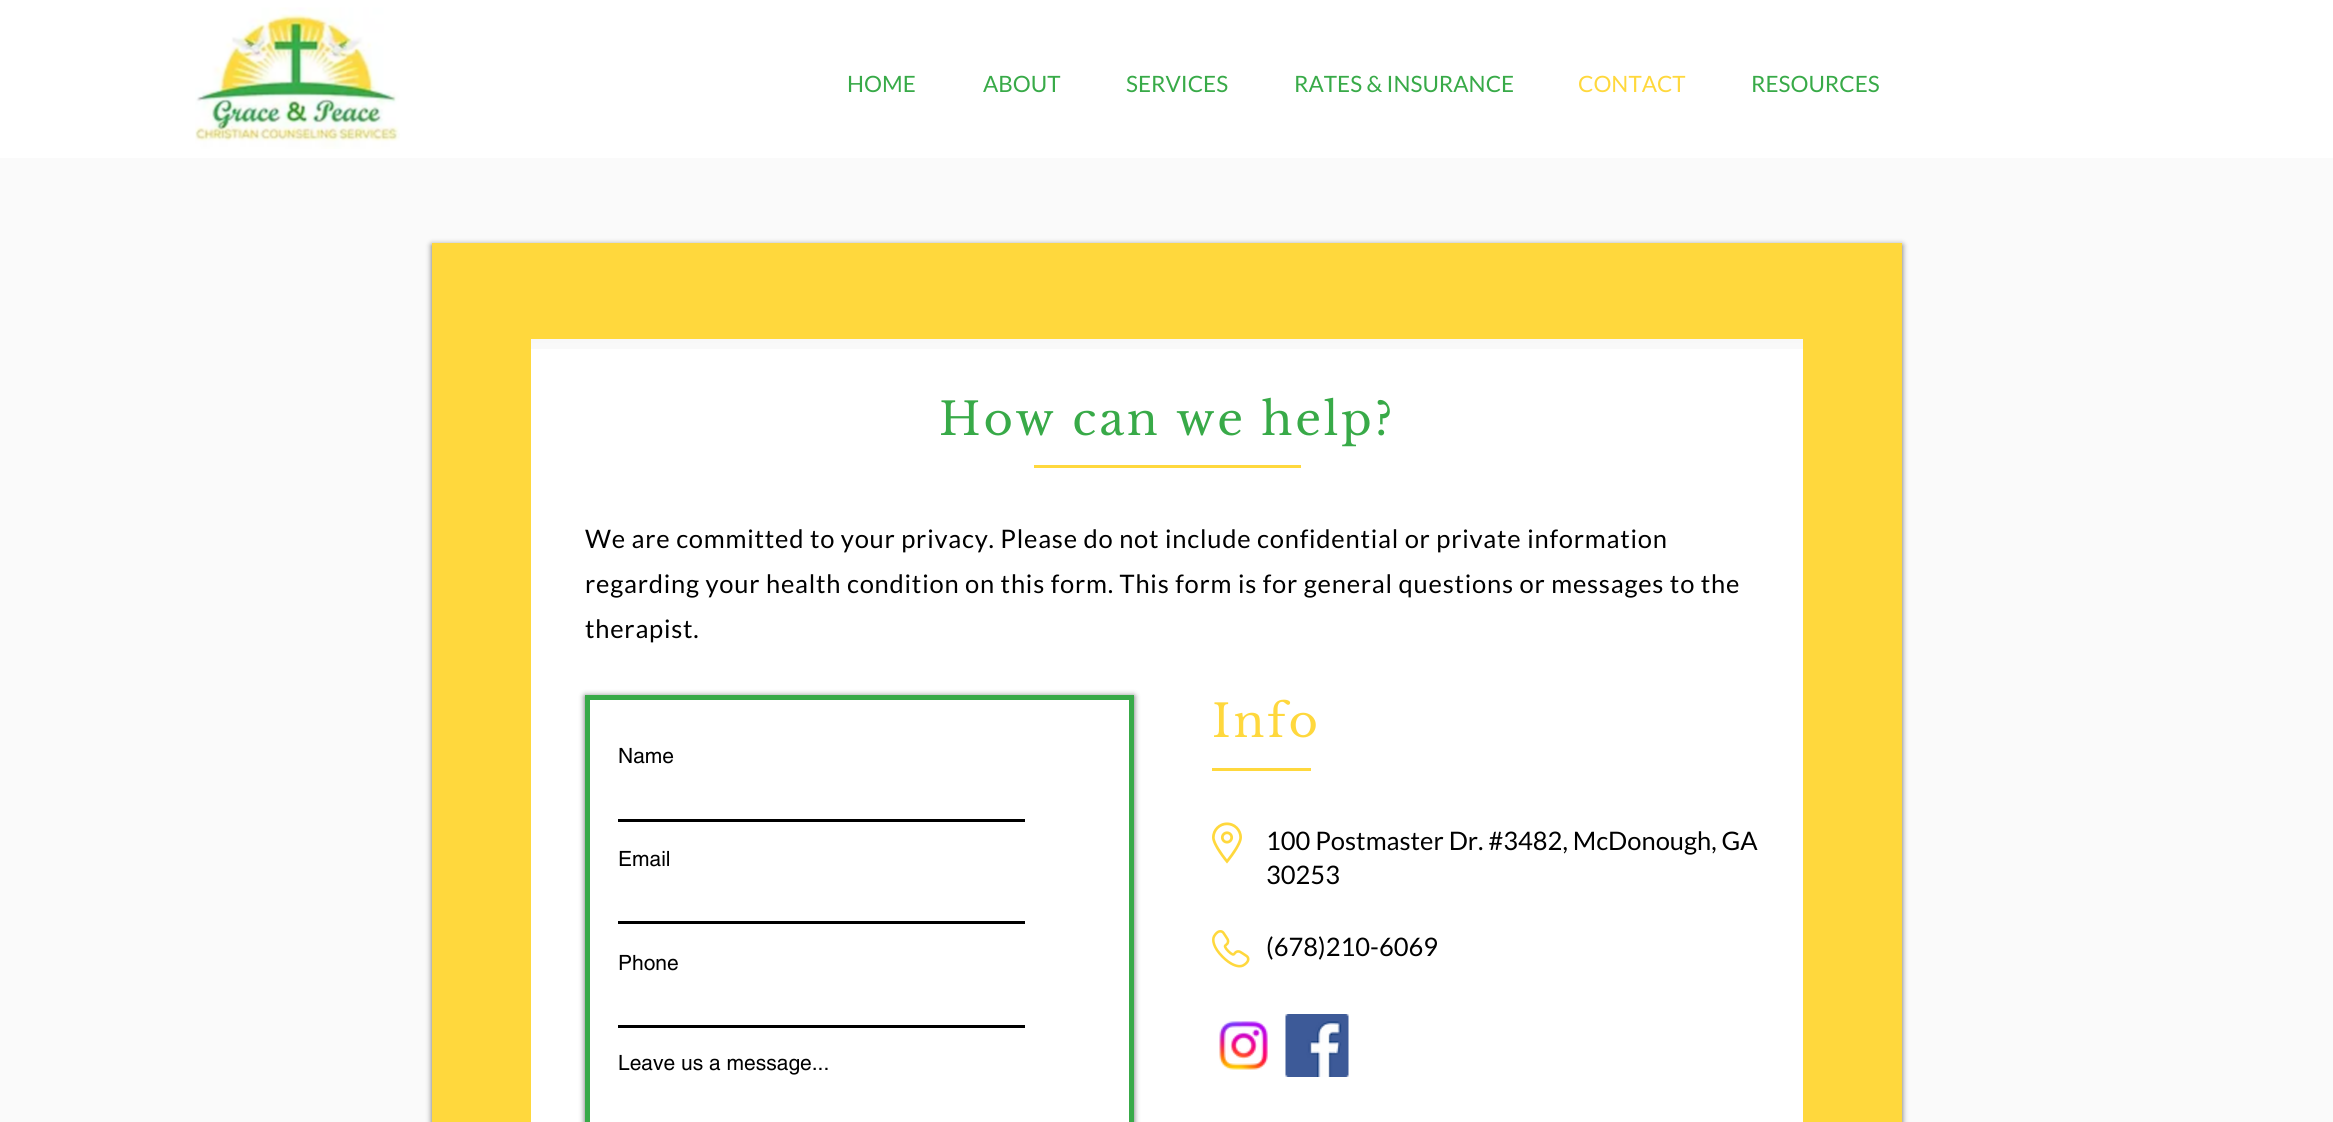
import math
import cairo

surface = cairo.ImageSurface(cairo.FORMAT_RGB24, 2333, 1122)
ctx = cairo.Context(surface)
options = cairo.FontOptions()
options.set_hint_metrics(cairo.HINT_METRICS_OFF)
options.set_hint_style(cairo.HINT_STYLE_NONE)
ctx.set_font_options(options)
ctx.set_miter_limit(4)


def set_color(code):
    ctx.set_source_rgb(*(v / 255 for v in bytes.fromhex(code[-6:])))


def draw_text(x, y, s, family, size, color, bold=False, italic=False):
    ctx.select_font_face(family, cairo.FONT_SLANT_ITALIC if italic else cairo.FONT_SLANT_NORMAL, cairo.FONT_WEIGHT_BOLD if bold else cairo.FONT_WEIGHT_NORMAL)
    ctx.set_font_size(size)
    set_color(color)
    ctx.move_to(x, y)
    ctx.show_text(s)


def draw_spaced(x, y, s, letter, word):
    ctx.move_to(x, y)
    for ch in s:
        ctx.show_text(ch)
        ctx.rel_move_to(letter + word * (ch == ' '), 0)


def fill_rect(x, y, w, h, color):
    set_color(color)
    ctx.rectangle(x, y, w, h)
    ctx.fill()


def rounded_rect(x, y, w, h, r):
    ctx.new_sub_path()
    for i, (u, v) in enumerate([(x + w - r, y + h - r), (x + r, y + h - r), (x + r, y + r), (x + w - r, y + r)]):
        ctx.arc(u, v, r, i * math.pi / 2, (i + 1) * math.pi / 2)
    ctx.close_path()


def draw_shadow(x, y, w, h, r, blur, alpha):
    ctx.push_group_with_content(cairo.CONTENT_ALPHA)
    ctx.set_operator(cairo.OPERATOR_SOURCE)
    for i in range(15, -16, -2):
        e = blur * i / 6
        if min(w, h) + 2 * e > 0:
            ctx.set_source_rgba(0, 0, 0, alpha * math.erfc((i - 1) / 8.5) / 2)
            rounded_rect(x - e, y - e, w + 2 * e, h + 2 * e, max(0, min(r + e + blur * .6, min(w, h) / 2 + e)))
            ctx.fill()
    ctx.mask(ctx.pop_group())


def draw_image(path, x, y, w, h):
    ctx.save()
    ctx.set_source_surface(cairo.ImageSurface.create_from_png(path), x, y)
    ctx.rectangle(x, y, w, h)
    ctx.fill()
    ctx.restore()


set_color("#fafafa")
ctx.paint()
fill_rect(0, 0, 2333, 158, "#ffffff")
draw_image("assets/img1.png", 195, 7, 205, 142)
draw_text(847, 92, "HOME", "Lato", 22.5, "#38aa48")
draw_text(983, 92, "ABOUT", "Lato", 22.5, "#38aa48")
draw_text(1126, 92, "SERVICES", "Lato", 22.5, "#38aa48")
draw_text(1294, 92, "RATES & INSURANCE", "Lato", 22.5, "#38aa48")
draw_text(1578, 92, "CONTACT", "Lato", 22.5, "#ffd83d")
draw_text(1751, 92, "RESOURCES", "Lato", 22.5, "#38aa48")
set_color("#000000")
draw_shadow(432, 245, 1470, 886, 0, 3, 0.6)
fill_rect(531, 339, 1272, 783, "#ffffff")
draw_image("assets/img2.png", 531, 339, 1272, 10)
fill_rect(432, 243, 1470, 96, "#ffd83d")
fill_rect(432, 339, 99, 783, "#ffd83d")
ctx.select_font_face("Libre Baskerville")
ctx.set_font_size(45)
set_color("#38aa48")
draw_spaced(939, 435, "How can we help?", 2.75, 0)
fill_rect(1803, 339, 99, 783, "#ffd83d")
fill_rect(1034, 465, 267, 3, "#ffd83d")
ctx.select_font_face("Lato")
ctx.set_font_size(25.5)
set_color("#000000")
draw_spaced(585, 548, "We are committed to your privacy. Please do not include confidential or private information", 0.77, 0)
draw_spaced(585, 593, "regarding your health condition on this form. This form is for general questions or messages to the", 0.77, 0)
draw_spaced(585, 638, "therapist.", 0.77, 0)
ctx.select_font_face("Libre Baskerville")
ctx.set_font_size(45)
set_color("#ffd83d")
draw_spaced(1212, 737, "Info", 2.75, 0)
ctx.save()
ctx.set_fill_rule(cairo.FILL_RULE_EVEN_ODD)
ctx.new_path()
ctx.move_to(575, 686)
ctx.line_to(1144, 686)
ctx.line_to(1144, 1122)
ctx.line_to(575, 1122)
ctx.close_path()
ctx.move_to(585, 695)
ctx.line_to(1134, 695)
ctx.line_to(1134, 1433)
ctx.line_to(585, 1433)
ctx.close_path()
ctx.clip()
set_color("#000000")
draw_shadow(585, 696, 549, 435, 0, 3, 0.6)
ctx.restore()
ctx.rectangle(587.5, 697.5, 544, 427)
set_color("#38aa48")
ctx.set_line_width(5)
ctx.stroke()
draw_text(618, 763, "Name", "helvetica", 21, "#000000")
fill_rect(618, 819, 407, 3, "#000000")
draw_text(618, 866, "Email", "helvetica", 21, "#000000")
fill_rect(618, 921, 407, 3, "#000000")
draw_text(618, 970, "Phone", "helvetica", 21, "#000000")
fill_rect(618, 1025, 407, 3, "#000000")
draw_text(618, 1070, "Leave us a message...", "helvetica", 21, "#000000")
fill_rect(1212, 768, 99, 3, "#ffd83d")
draw_image("assets/img3.png", 1212, 822, 30, 42)
draw_text(1266, 850, "100 Postmaster Dr. #3482, McDonough, GA", "Lato", 25.5, "#000000")
draw_text(1266, 884, "30253", "Lato", 25.5, "#000000")
draw_image("assets/img4.png", 1212, 930, 38, 38)
draw_text(1266, 956, "(678)210-6069", "Lato", 25.5, "#000000")
draw_image("assets/img5.png", 1219, 1021, 49, 49)
draw_image("assets/img6.png", 1285, 1014, 64, 63)
surface.write_to_png("output.png")
